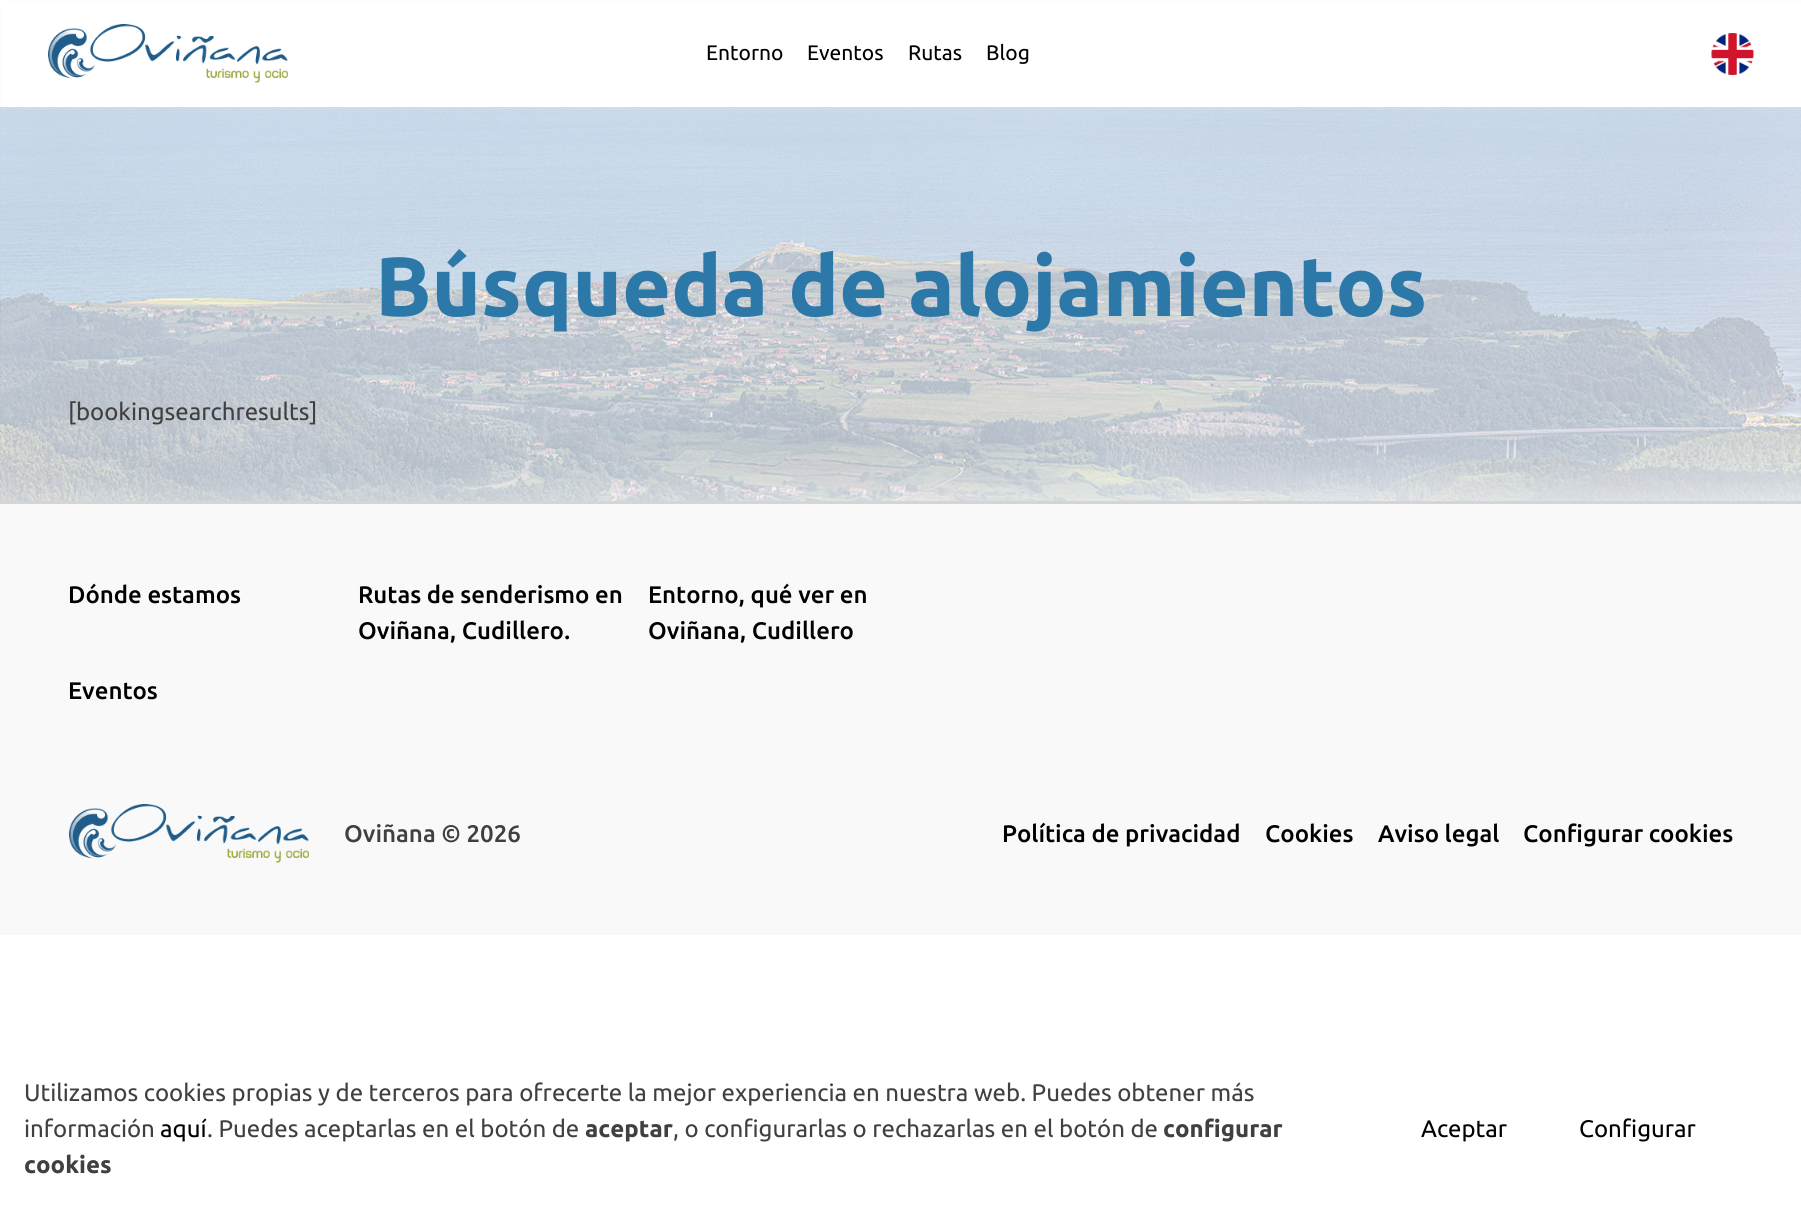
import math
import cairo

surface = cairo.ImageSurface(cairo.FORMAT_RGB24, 1801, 1206)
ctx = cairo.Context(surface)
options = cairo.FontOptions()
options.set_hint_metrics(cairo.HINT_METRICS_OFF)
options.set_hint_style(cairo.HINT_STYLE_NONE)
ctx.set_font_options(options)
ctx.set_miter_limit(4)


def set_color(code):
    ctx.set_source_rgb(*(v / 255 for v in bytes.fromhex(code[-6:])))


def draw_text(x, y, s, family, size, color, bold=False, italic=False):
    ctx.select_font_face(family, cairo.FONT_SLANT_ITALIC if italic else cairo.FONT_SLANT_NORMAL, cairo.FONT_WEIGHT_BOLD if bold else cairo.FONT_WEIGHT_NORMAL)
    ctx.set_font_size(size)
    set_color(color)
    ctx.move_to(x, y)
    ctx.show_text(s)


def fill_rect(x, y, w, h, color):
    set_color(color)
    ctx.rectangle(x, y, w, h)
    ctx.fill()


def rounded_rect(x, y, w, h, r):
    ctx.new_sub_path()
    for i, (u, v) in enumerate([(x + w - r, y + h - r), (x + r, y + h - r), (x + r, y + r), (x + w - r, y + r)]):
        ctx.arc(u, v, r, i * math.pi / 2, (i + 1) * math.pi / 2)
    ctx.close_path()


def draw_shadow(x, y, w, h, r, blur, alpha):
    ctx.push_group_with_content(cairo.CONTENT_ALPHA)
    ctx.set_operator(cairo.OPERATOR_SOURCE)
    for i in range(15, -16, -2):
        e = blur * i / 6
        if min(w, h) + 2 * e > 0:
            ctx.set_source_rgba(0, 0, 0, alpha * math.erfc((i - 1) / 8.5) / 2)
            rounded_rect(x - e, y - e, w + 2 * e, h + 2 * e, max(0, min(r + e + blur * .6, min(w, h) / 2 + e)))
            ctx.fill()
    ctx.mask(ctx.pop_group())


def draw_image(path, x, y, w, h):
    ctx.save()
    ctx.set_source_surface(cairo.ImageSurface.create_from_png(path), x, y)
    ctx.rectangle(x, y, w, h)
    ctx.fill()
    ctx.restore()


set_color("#ffffff")
ctx.paint()
draw_image("assets/img3.png", 0, 107, 1801, 394)
set_color("#e0dfdf")
draw_shadow(2, 2, 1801, 106, 0, 1, 1)
fill_rect(1, 1, 1800, 106, "#ffffff")
draw_image("assets/img1.png", 48, 24, 240, 59)
draw_text(706, 60, "Entorno", "Ubuntu", 21, "#000000")
draw_text(807, 60, "Eventos", "Ubuntu", 21, "#000000")
draw_text(908, 60, "Rutas", "Ubuntu", 21, "#000000")
draw_text(986, 60, "Blog", "Ubuntu", 21, "#000000")
draw_image("assets/img2.png", 1711, 33, 43, 42)
draw_text(375, 316, "Búsqueda de alojamientos", "Ubuntu", 84, "#2b78a9", bold=True)
draw_text(68, 420, "[bookingsearchresults]", "Ubuntu", 24, "#404040")
fill_rect(0, 504, 1801, 431, "#f9f9f9")
fill_rect(0, 501, 1801, 3, "#d5d5d5")
draw_text(68, 603, "Dónde estamos", "Ubuntu Medium", 24, "#000000")
draw_text(358, 603, "Rutas de senderismo en", "Ubuntu Medium", 24, "#000000")
draw_text(358, 639, "Oviñana, Cudillero.", "Ubuntu Medium", 24, "#000000")
draw_text(648, 603, "Entorno, qué ver en", "Ubuntu Medium", 24, "#000000")
draw_text(648, 639, "Oviñana, Cudillero", "Ubuntu Medium", 24, "#000000")
draw_text(68, 699, "Eventos", "Ubuntu Medium", 24, "#000000")
draw_image("assets/img4.png", 69, 804, 240, 59)
draw_text(344, 842, "Oviñana © 2026", "Ubuntu Medium", 24, "#404040")
draw_text(1002, 842, "Política de privacidad", "Ubuntu Medium", 24, "#000000")
draw_text(1265, 842, "Cookies", "Ubuntu Medium", 24, "#000000")
draw_text(1378, 842, "Aviso legal", "Ubuntu Medium", 24, "#000000")
draw_text(1523, 842, "Configurar cookies", "Ubuntu Medium", 24, "#000000")
draw_text(24, 1101, "Utilizamos cookies propias y de terceros para ofrecerte la mejor experiencia en nuestra web. Puedes obtener más", "Ubuntu", 24, "#404040")
draw_text(24, 1137, "información", "Ubuntu", 24, "#404040")
draw_text(160, 1137, "aquí", "Ubuntu", 24, "#000000")
draw_text(207, 1137, ". Puedes aceptarlas en el botón de", "Ubuntu", 24, "#404040")
draw_text(585, 1137, "aceptar", "Ubuntu", 24, "#404040", bold=True)
draw_text(673, 1137, ", o configurarlas o rechazarlas en el botón de", "Ubuntu", 24, "#404040")
draw_text(1163, 1137, "configurar", "Ubuntu", 24, "#404040", bold=True)
draw_text(24, 1173, "cookies", "Ubuntu", 24, "#404040", bold=True)
draw_text(1421, 1137, "Aceptar", "Ubuntu", 24, "#000000")
draw_text(1579, 1137, "Configurar", "Ubuntu", 24, "#000000")
surface.write_to_png("output.png")
